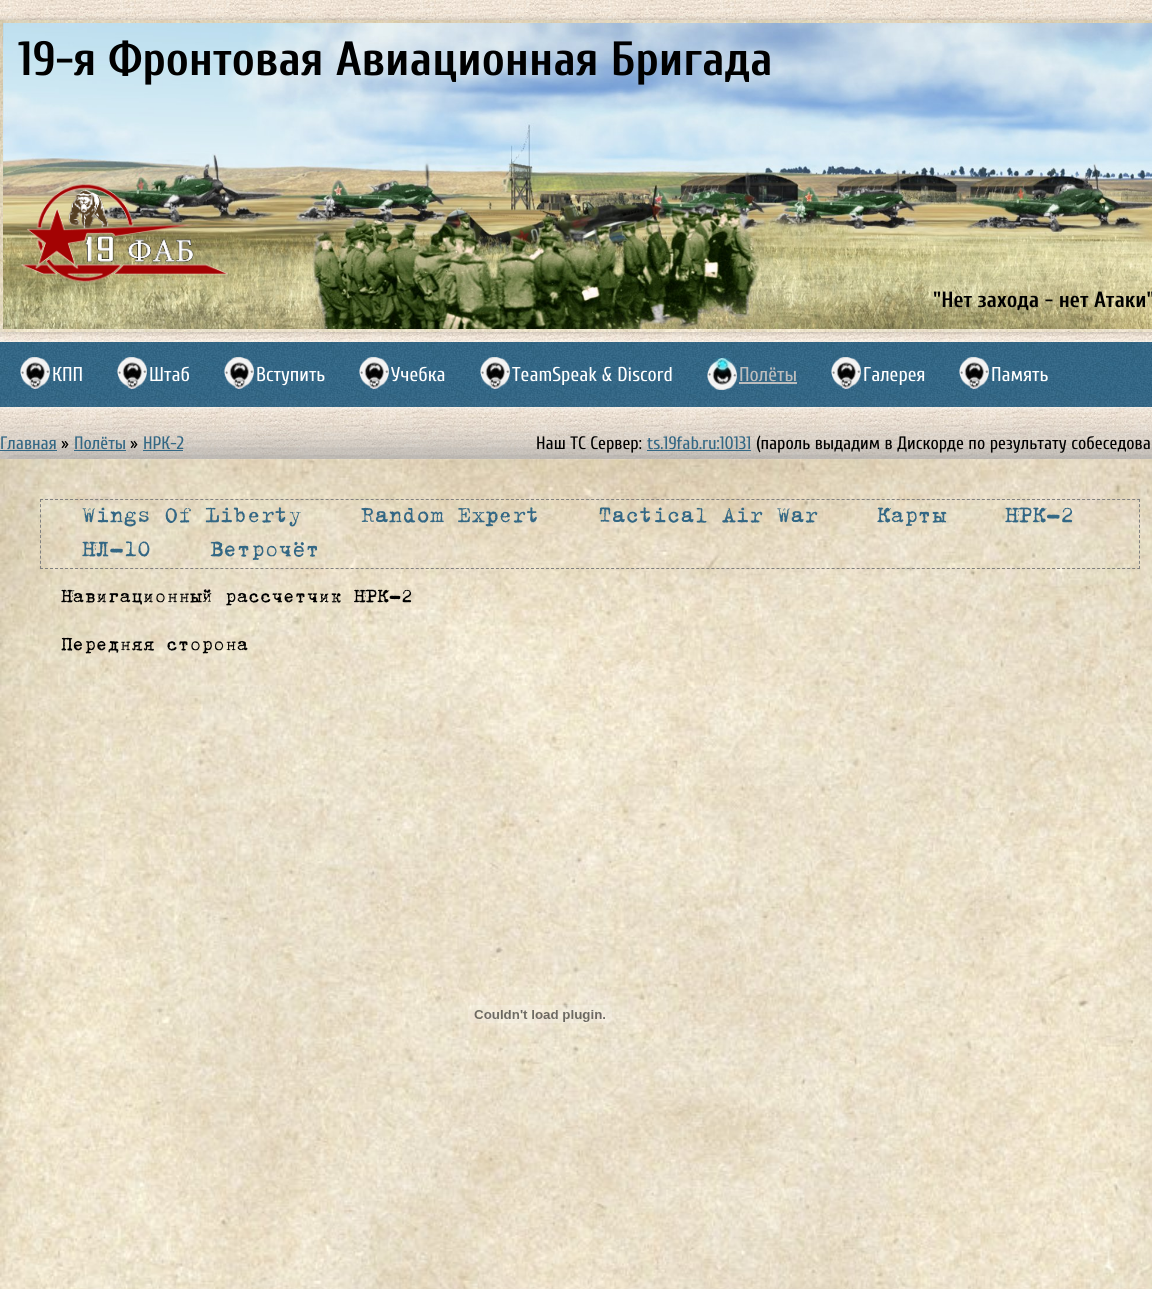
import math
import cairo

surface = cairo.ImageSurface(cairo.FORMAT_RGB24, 1152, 1289)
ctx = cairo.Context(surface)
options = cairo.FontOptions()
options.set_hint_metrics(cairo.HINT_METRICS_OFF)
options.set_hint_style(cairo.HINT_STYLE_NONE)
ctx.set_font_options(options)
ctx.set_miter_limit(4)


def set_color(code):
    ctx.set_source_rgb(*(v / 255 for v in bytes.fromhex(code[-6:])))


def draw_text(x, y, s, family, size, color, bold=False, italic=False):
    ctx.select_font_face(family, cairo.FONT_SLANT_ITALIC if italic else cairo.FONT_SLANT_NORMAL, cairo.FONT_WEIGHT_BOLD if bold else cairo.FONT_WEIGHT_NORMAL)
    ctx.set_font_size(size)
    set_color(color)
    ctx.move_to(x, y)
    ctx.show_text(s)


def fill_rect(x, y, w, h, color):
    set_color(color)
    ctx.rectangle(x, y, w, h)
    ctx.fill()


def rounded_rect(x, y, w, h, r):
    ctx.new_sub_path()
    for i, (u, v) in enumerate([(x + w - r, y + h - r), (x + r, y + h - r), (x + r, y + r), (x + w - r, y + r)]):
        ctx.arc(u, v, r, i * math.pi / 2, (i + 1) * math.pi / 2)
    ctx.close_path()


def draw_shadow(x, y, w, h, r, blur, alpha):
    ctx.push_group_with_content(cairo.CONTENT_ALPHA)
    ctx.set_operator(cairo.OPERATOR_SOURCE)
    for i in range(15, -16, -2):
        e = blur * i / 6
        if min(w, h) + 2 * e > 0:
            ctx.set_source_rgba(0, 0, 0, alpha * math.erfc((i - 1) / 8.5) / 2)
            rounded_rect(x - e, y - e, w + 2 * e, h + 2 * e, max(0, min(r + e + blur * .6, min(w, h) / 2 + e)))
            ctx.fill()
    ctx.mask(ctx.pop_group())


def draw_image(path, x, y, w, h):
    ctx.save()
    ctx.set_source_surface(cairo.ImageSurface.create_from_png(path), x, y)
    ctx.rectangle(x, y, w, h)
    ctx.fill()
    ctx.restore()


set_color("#ffffff")
ctx.paint()
draw_image("assets/img1.png", 0, 0, 1152, 459)
set_color("#000000")
draw_shadow(0, 20, 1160, 312, 0, 2.5, 0.25)
draw_image("assets/img3.png", 0, 20, 1152, 312)
draw_image("assets/img4.png", 3, 23, 1149, 306)
draw_text(18, 75, "19-я Фронтовая Авиационная Бригада", "Cuprum", 48, "#000000", bold=True)
draw_image("assets/img2.png", 21, 183, 207, 99)
draw_text(933, 307, "\"Нет захода - нет Атаки\"", "Cuprum", 22, "#000000", bold=True)
set_color("#ffffff")
draw_shadow(0, 342, 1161, 65, 0, 3, 0.9)
draw_image("assets/img5.png", 0, 342, 1152, 65)
draw_image("assets/img6.png", 20, 357, 30, 32)
draw_text(52, 381, "КПП", "Cuprum", 20, "#ffffff")
draw_image("assets/img7.png", 117, 357, 30, 32)
draw_text(149, 381, "Штаб", "Cuprum", 20, "#ffffff")
draw_image("assets/img8.png", 224, 357, 30, 32)
draw_text(256, 381, "Вступить", "Cuprum", 20, "#ffffff")
draw_image("assets/img9.png", 359, 357, 30, 32)
draw_text(391, 381, "Учебка", "Cuprum", 20, "#ffffff")
draw_image("assets/img10.png", 480, 357, 30, 32)
draw_text(512, 381, "TeamSpeak & Discord", "Cuprum", 20, "#ffffff")
draw_image("assets/img11.png", 707, 358, 30, 32)
draw_text(739, 381, "Полёты", "Cuprum", 20, "#bdbdbd")
fill_rect(739, 382, 58, 2, "#bdbdbd")
draw_image("assets/img12.png", 831, 357, 30, 32)
draw_text(863, 381, "Галерея", "Cuprum", 20, "#ffffff")
draw_image("assets/img13.png", 959, 357, 30, 32)
draw_text(991, 381, "Память", "Cuprum", 20, "#ffffff")
set_color("#a0a0a0")
draw_shadow(1, 451, 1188, 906, 0, 22.5, 1)
draw_text(0, 449, "Главная", "Cuprum", 18, "#336784")
fill_rect(0, 450, 57, 1, "#336784")
draw_text(61, 449, "»", "Cuprum", 18, "#000000")
draw_text(74, 449, "Полёты", "Cuprum", 18, "#336784")
fill_rect(74, 450, 52, 1, "#336784")
draw_text(130, 449, "»", "Cuprum", 18, "#000000")
draw_text(143, 449, "НРК-2", "Cuprum", 18, "#336784")
fill_rect(143, 450, 40, 1, "#336784")
draw_text(536, 449, "Наш ТС Сервер:", "Cuprum", 18, "#000000")
draw_text(647, 449, "ts.19fab.ru:10131", "Cuprum", 18, "#336784")
fill_rect(647, 450, 104, 1, "#336784")
draw_text(756, 449, "(пароль выдадим в Дискорде по результату собеседова", "Cuprum", 18, "#000000")
draw_image("assets/img14.png", 0, 459, 1152, 830)
ctx.new_path()
ctx.move_to(40, 499.5)
ctx.line_to(1140, 499.5)
set_color("#808080")
ctx.set_line_width(1)
ctx.set_dash([3, 2.01])
ctx.stroke()
ctx.new_path()
ctx.move_to(1139.5, 499)
ctx.line_to(1139.5, 569)
ctx.set_dash([3, 2.15])
ctx.stroke()
ctx.new_path()
ctx.move_to(40, 568.5)
ctx.line_to(1140, 568.5)
ctx.set_dash([3, 2.01])
ctx.stroke()
ctx.new_path()
ctx.move_to(40.5, 499)
ctx.line_to(40.5, 569)
ctx.set_dash([3, 2.15])
ctx.stroke()
draw_text(82, 522, "Wings Of Liberty", "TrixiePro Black", 25, "#336784")
draw_text(361, 522, "Random Expert", "TrixiePro Black", 25, "#336784")
draw_text(598, 522, "Tactical Air War", "TrixiePro Black", 25, "#336784")
draw_text(877, 522, "Карты", "TrixiePro Black", 25, "#336784")
draw_text(1005, 522, "НРК-2", "TrixiePro Black", 25, "#336784")
draw_text(82, 556, "НЛ-10", "TrixiePro Black", 25, "#336784")
draw_text(210, 556, "Ветрочёт", "TrixiePro Black", 25, "#336784")
draw_text(61, 602, "Навигационный рассчетчик НРК-2", "TrixiePro Black", 21.3, "#000000")
draw_text(61, 650, "Передняя сторона", "TrixiePro Black", 21.3, "#000000")
draw_image("assets/img15.png", 468, 1005, 144, 18)
surface.write_to_png("output.png")
